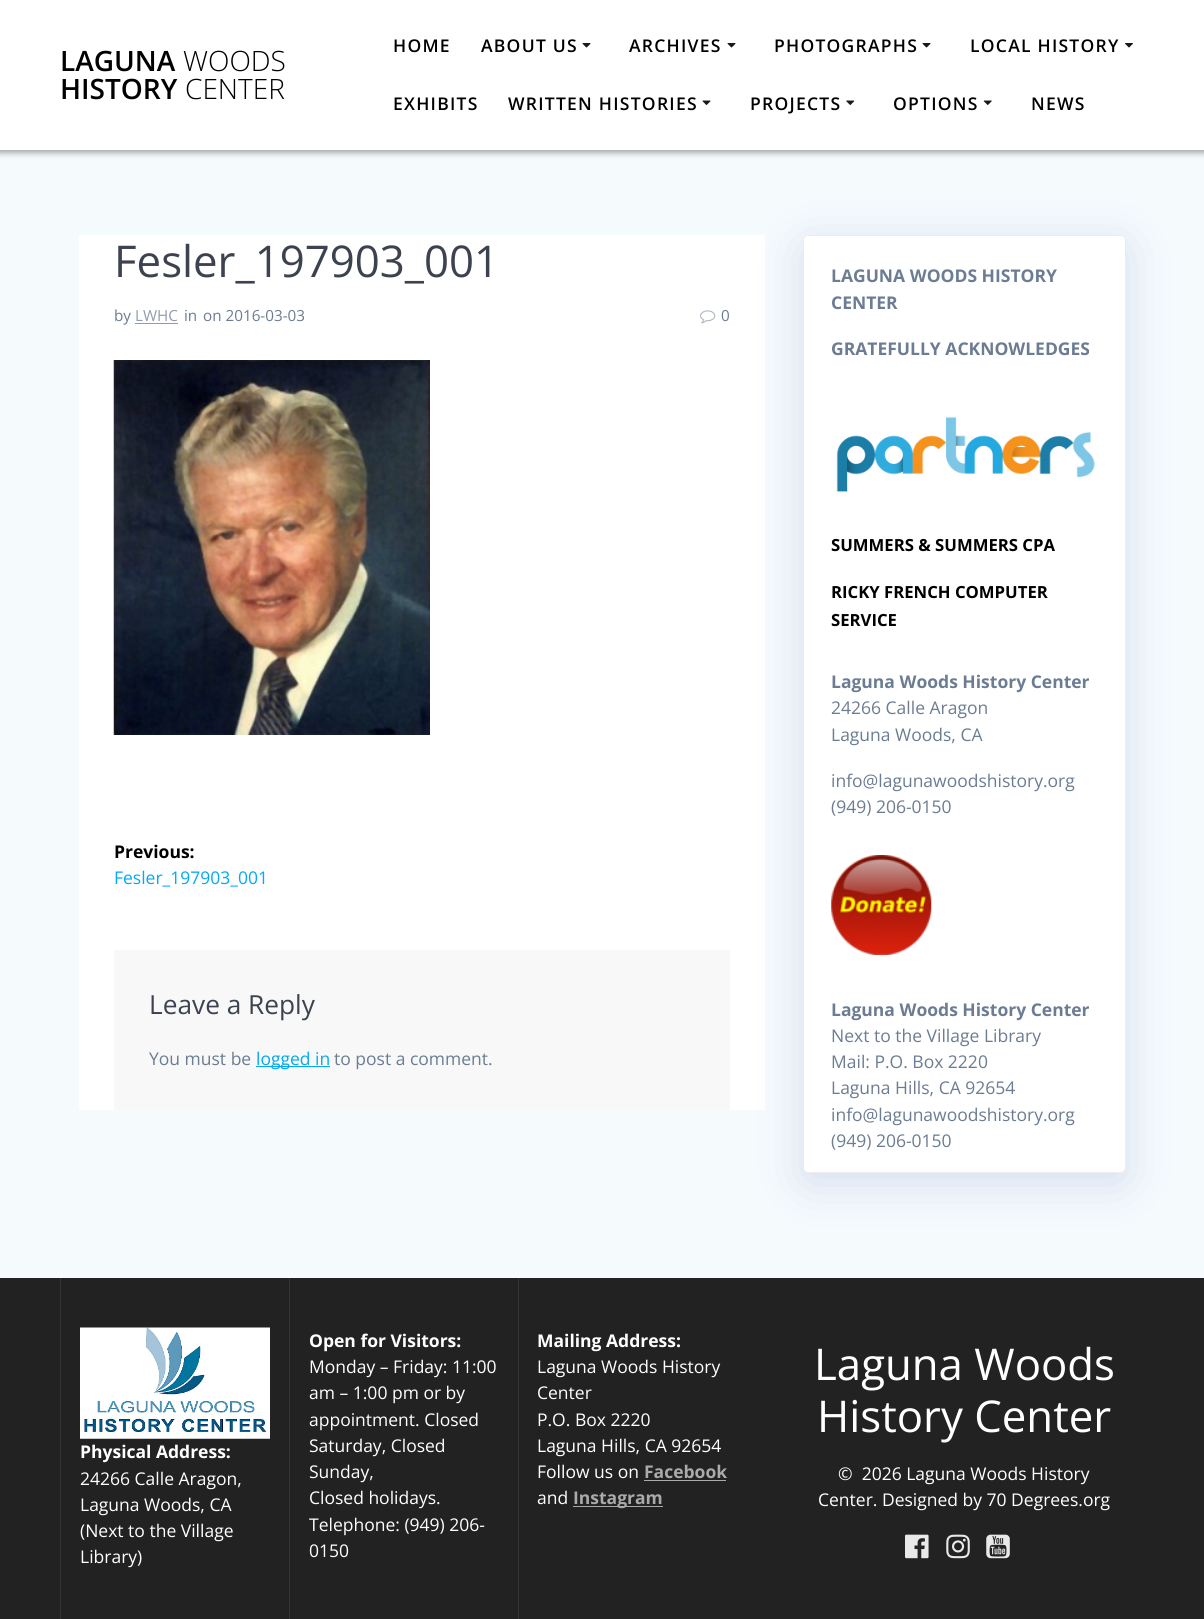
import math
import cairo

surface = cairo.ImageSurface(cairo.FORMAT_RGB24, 1204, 1619)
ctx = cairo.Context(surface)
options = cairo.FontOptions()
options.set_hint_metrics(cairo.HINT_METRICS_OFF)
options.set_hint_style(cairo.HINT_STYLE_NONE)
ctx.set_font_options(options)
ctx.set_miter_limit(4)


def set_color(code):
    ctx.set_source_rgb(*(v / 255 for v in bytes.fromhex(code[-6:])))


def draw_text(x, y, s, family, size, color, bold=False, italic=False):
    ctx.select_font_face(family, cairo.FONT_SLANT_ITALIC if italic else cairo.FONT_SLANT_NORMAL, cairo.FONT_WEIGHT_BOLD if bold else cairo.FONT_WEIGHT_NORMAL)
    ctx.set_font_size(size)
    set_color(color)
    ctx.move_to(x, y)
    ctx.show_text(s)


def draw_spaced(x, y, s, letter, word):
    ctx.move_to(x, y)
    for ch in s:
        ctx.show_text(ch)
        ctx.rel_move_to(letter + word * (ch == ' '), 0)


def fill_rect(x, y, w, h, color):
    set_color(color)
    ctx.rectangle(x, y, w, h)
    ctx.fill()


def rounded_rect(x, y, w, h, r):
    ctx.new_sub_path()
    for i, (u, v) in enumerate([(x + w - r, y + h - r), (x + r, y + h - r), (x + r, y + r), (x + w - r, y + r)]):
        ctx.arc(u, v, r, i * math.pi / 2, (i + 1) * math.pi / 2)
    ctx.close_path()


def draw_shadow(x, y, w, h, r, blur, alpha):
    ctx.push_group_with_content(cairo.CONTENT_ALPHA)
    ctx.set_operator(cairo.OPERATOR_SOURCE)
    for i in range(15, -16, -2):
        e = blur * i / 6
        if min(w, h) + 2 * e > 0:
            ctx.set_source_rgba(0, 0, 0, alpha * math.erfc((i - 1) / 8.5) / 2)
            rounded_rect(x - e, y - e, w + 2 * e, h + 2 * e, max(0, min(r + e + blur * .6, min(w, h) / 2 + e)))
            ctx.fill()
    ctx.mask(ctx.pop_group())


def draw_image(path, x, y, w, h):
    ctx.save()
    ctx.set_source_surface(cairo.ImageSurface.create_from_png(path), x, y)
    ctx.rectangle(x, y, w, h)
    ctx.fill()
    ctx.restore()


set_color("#222222")
ctx.paint()
fill_rect(0, 150, 1204, 1128, "#f5fafd")
set_color("#000000")
draw_shadow(-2, -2, 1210, 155, 0, 3, 0.33)
fill_rect(0, 0, 1204, 150, "#ffffff")
draw_text(60, 71, "LAGUNA", "Open Sans SemiBold", 28, "#000000")
draw_text(183, 71, "WOODS", "Open Sans Light", 28, "#000000")
draw_text(60, 99, "HISTORY", "Open Sans SemiBold", 28, "#000000")
draw_text(185, 99, "CENTER", "Open Sans Light", 28, "#000000")
ctx.select_font_face("Open Sans SemiBold")
ctx.set_font_size(17.5)
draw_spaced(393, 52, "HOME", 1.25, 0)
draw_spaced(481, 52, "ABOUT US", 1.25, 0)
draw_image("assets/img1.png", 582, 43, 9, 5)
draw_spaced(629, 52, "ARCHIVES", 1.25, 0)
draw_image("assets/img1.png", 727, 43, 9, 5)
draw_spaced(774, 52, "PHOTOGRAPHS", 1.25, 0)
draw_image("assets/img1.png", 922, 43, 9, 5)
draw_spaced(970, 52, "LOCAL HISTORY", 1.25, 0)
draw_image("assets/img2.png", 1125, 43, 8, 5)
draw_spaced(393, 110, "EXHIBITS", 1.25, 0)
draw_spaced(508, 110, "WRITTEN HISTORIES", 1.25, 0)
draw_image("assets/img3.png", 702, 100, 9, 5)
draw_spaced(750, 110, "PROJECTS", 1.25, 0)
draw_image("assets/img4.png", 846, 100, 9, 5)
draw_spaced(893, 110, "OPTIONS", 1.25, 0)
draw_image("assets/img5.png", 983, 100, 9, 5)
draw_spaced(1031, 110, "NEWS", 1.25, 0)
fill_rect(79, 235, 686, 875, "#ffffff")
draw_text(114, 277, "Fesler_197903_001", "Open Sans", 43.75, "#3c424f")
draw_text(114, 321, "by", "Open Sans", 15.25, "#6b7c93")
draw_text(135, 321, "LWHC", "Open Sans", 15.25, "#8e9dae")
fill_rect(135, 323, 43, 1, "#8e9dae")
draw_text(184, 321, "in", "Open Sans", 15.25, "#6b7c93")
draw_text(203, 321, "on 2016-03-03", "Open Sans", 15.25, "#6b7c93")
draw_image("assets/img6.png", 700, 310, 16, 14)
draw_text(721, 321, "0", "Open Sans", 15.25, "#6b7c93")
draw_image("assets/img7.png", 113, 360, 317, 375)
draw_text(114, 858, "Previous:", "Open Sans", 17.5, "#000000", bold=True)
draw_text(114, 884, "Fesler_197903_001", "Open Sans", 17.5, "#03a9f4")
fill_rect(114, 950, 616, 160, "#f8f8f8")
draw_text(149, 1014, "Leave a Reply", "Open Sans", 26.25, "#3c424f")
draw_text(149, 1065, "You must be", "Open Sans", 17.5, "#6b7c93")
fill_rect(256, 1066, 74, 1, "#03a9f4")
draw_text(256, 1065, "logged in", "Open Sans", 17.5, "#03a9f4")
draw_text(334, 1065, "to post a comment.", "Open Sans", 17.5, "#6b7c93")
set_color("#234598")
draw_shadow(803, 245, 323, 938, 5, 24.5, 0.15)
set_color("#ffffff")
rounded_rect(803.5, 235.5, 322, 937, 4.5)
ctx.fill_preserve()
set_color("#ececec")
ctx.set_line_width(1)
ctx.stroke()
draw_text(831, 282, "LAGUNA WOODS HISTORY", "Open Sans", 17.5, "#6b7c93", bold=True)
draw_text(831, 309, "CENTER", "Open Sans", 17.5, "#6b7c93", bold=True)
draw_text(831, 355, "GRATEFULLY ACKNOWLEDGES", "Open Sans", 17.5, "#6b7c93", bold=True)
draw_image("assets/img8.png", 836, 416, 259, 77)
draw_text(831, 551, "SUMMERS & SUMMERS CPA", "Open Sans", 16.7, "#000000", bold=True)
draw_text(831, 598, "RICKY FRENCH COMPUTER", "Open Sans", 16.7, "#000000", bold=True)
draw_text(831, 626, "SERVICE", "Open Sans", 16.7, "#000000", bold=True)
draw_text(831, 688, "Laguna Woods History Center", "Open Sans", 17.5, "#6b7c93", bold=True)
draw_text(831, 714, "24266 Calle Aragon", "Open Sans", 17.5, "#6b7c93")
draw_text(831, 741, "Laguna Woods, CA", "Open Sans", 17.5, "#6b7c93")
draw_text(831, 787, "info@lagunawoodshistory.org", "Open Sans", 17.5, "#6b7c93")
draw_text(831, 813, "(949) 206-0150", "Open Sans", 17.5, "#6b7c93")
draw_image("assets/img9.png", 831, 855, 101, 100)
draw_text(831, 1016, "Laguna Woods History Center", "Open Sans", 17.5, "#6b7c93", bold=True)
draw_text(831, 1042, "Next to the Village Library", "Open Sans", 17.5, "#6b7c93")
draw_text(831, 1068, "Mail: P.O. Box 2220", "Open Sans", 17.5, "#6b7c93")
draw_text(831, 1094, "Laguna Hills, CA 92654", "Open Sans", 17.5, "#6b7c93")
draw_text(831, 1121, "info@lagunawoodshistory.org", "Open Sans", 17.5, "#6b7c93")
draw_text(831, 1147, "(949) 206-0150", "Open Sans", 17.5, "#6b7c93")
fill_rect(60, 1278, 1, 341, "#353535")
draw_image("assets/img10.png", 80, 1327, 190, 112)
draw_text(80, 1458, "Physical Address:", "Open Sans", 17.5, "#ffffff", bold=True)
draw_text(80, 1485, "24266 Calle Aragon,", "Open Sans", 17.5, "#ffffff")
draw_text(80, 1511, "Laguna Woods, CA", "Open Sans", 17.5, "#ffffff")
draw_text(80, 1537, "(Next to the Village", "Open Sans", 17.5, "#ffffff")
draw_text(80, 1563, "Library)", "Open Sans", 17.5, "#ffffff")
fill_rect(289, 1278, 1, 341, "#353535")
draw_text(309, 1347, "Open for Visitors:", "Open Sans", 17.5, "#ffffff", bold=True)
draw_text(309, 1373, "Monday – Friday: 11:00", "Open Sans", 17.5, "#ffffff")
draw_text(309, 1399, "am – 1:00 pm or by", "Open Sans", 17.5, "#ffffff")
draw_text(309, 1426, "appointment. Closed", "Open Sans", 17.5, "#ffffff")
draw_text(309, 1452, "Saturday, Closed", "Open Sans", 17.5, "#ffffff")
draw_text(309, 1478, "Sunday,", "Open Sans", 17.5, "#ffffff")
draw_text(309, 1504, "Closed holidays.", "Open Sans", 17.5, "#ffffff")
draw_text(309, 1531, "Telephone: (949) 206-", "Open Sans", 17.5, "#ffffff")
draw_text(309, 1557, "0150", "Open Sans", 17.5, "#ffffff")
fill_rect(518, 1278, 1, 341, "#353535")
draw_text(537, 1347, "Mailing Address:", "Open Sans", 17.5, "#ffffff", bold=True)
draw_text(537, 1373, "Laguna Woods History", "Open Sans", 17.5, "#ffffff")
draw_text(537, 1399, "Center", "Open Sans", 17.5, "#ffffff")
draw_text(537, 1426, "P.O. Box 2220", "Open Sans", 17.5, "#ffffff")
draw_text(537, 1452, "Laguna Hills, CA 92654", "Open Sans", 17.5, "#ffffff")
draw_text(537, 1478, "Follow us on", "Open Sans", 17.5, "#ffffff")
draw_text(644, 1478, "Facebook", "Open Sans", 17.5, "#aaaaaa", bold=True)
fill_rect(644, 1480, 82, 1, "#aaaaaa")
draw_text(537, 1504, "and", "Open Sans", 17.5, "#ffffff")
fill_rect(573, 1506, 90, 1, "#aaaaaa")
draw_text(573, 1504, "Instagram", "Open Sans", 17.5, "#aaaaaa", bold=True)
draw_text(814, 1380, "Laguna Woods", "Open Sans", 43.75, "#ffffff")
draw_text(817, 1432, "History Center", "Open Sans", 43.75, "#ffffff")
draw_text(838, 1480, "©  2026 Laguna Woods History", "Open Sans", 17.5, "#ffffff")
draw_text(818, 1506, "Center. Designed by 70 Degrees.org", "Open Sans", 17.5, "#ffffff")
draw_image("assets/img11.png", 905, 1534, 24, 25)
draw_image("assets/img12.png", 946, 1534, 24, 25)
draw_image("assets/img13.png", 986, 1534, 24, 25)
surface.write_to_png("output.png")
